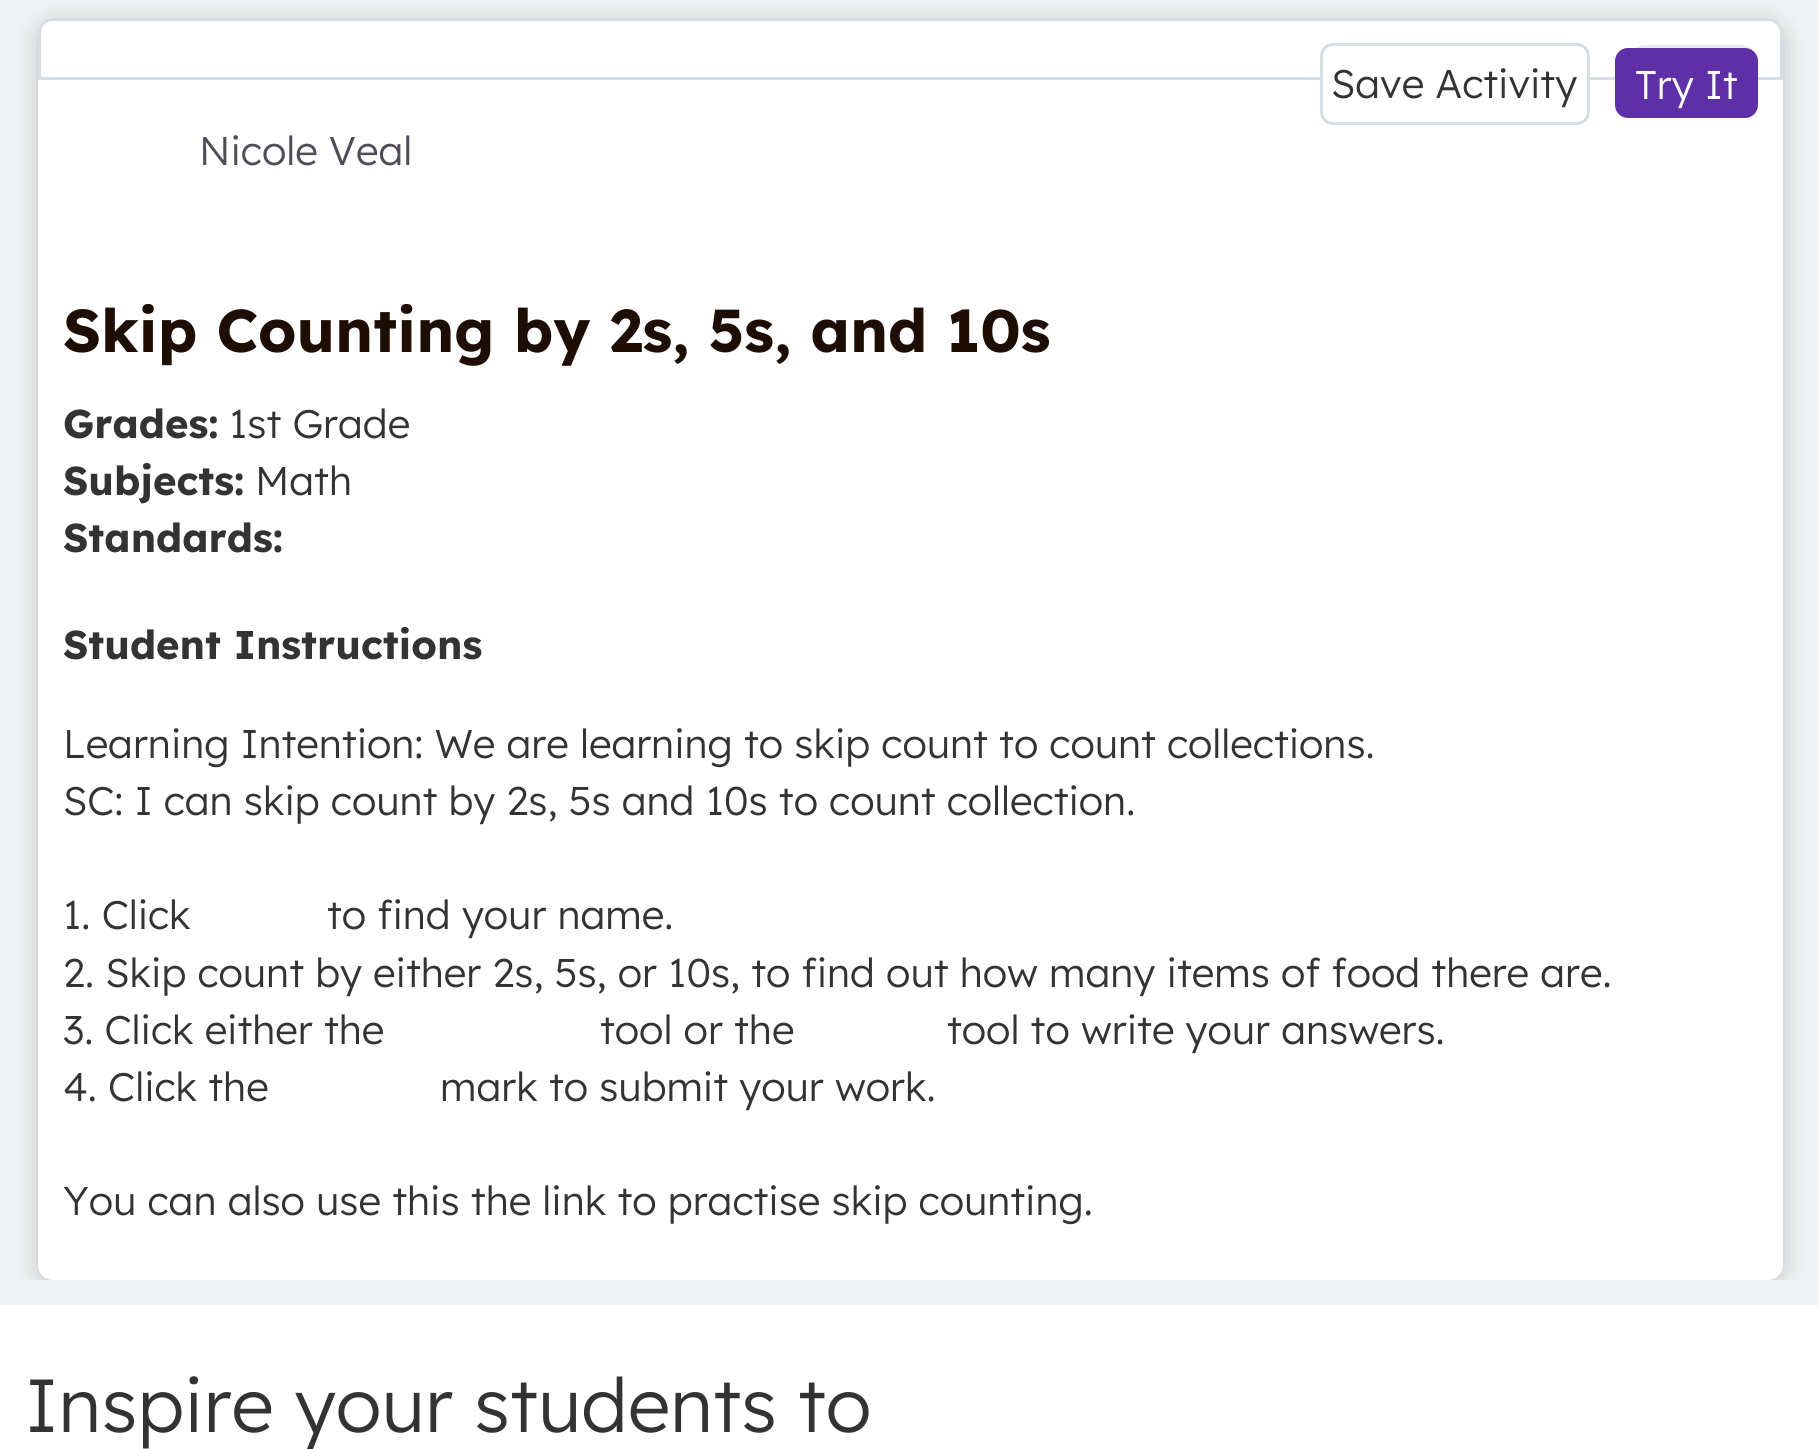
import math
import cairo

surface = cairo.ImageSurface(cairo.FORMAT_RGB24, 1819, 1449)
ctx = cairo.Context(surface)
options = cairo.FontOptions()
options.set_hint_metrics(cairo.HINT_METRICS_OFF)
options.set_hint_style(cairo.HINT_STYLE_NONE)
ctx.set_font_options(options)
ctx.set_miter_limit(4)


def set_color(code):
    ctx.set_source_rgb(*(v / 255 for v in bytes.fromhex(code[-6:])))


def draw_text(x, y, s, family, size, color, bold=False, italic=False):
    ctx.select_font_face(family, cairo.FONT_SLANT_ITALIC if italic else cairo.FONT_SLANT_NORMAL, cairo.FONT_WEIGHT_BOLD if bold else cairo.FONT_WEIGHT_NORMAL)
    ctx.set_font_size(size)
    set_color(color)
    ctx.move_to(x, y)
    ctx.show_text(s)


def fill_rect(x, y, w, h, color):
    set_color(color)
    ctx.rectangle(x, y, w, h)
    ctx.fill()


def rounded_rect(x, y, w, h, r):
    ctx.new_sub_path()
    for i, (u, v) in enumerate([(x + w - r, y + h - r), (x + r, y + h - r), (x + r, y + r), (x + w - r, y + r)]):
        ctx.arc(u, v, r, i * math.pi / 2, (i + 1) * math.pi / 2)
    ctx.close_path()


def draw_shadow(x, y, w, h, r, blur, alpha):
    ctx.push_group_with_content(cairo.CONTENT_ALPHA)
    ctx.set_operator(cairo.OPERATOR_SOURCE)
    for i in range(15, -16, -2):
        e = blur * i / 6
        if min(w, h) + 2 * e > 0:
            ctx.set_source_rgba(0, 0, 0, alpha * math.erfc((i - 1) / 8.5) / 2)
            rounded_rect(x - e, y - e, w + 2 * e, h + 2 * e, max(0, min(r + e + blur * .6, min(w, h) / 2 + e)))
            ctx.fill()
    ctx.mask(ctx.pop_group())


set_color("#f0f2f3")
ctx.paint()
fill_rect(0, 1305, 1819, 144, "#ffffff")
ctx.save()
ctx.rectangle(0, 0, 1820, 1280)
ctx.clip()
set_color("#000000")
draw_shadow(38, 23, 1745, 1262, 15, 12.5, 0.2)
ctx.restore()
rounded_rect(38, 18, 1745, 1262, 15)
ctx.fill()
ctx.new_path()
ctx.move_to(53, 19.5)
ctx.line_to(1768, 19.5)
ctx.curve_to(1775.5, 19.5, 1781.5, 25.5, 1781.5, 33)
ctx.line_to(1781.5, 78.5)
ctx.line_to(39.5, 78.5)
ctx.line_to(39.5, 33)
ctx.curve_to(39.5, 25.5, 45.5, 19.5, 53, 19.5)
ctx.close_path()
set_color("#d8dde3")
ctx.set_line_width(3)
ctx.stroke()
set_color("#e6eaed")
ctx.new_path()
ctx.move_to(1645, 45)
ctx.line_to(1740, 45)
ctx.curve_to(1748.5, 45, 1755, 51.5, 1755, 60)
ctx.line_to(1755, 78)
ctx.line_to(1630, 78)
ctx.line_to(1630, 60)
ctx.curve_to(1630, 51.5, 1636.5, 45, 1645, 45)
ctx.close_path()
ctx.fill()
set_color("#ffffff")
rounded_rect(1321.5, 44.5, 267, 79, 11.5)
ctx.fill_preserve()
set_color("#d8dde3")
ctx.stroke()
draw_text(1331, 98, "Save Activity", "Lexend Light", 40, "#333333")
set_color("#5f2fa8")
rounded_rect(1615, 48, 143, 70, 13)
ctx.fill()
draw_text(1635, 99, "Try It", "Lexend Light", 40, "#ffffff")
draw_text(199, 165, "Nicole Veal", "Lexend Light", 40, "#524b59")
draw_text(63, 352, "Skip Counting by 2s, 5s, and 10s", "Lexend", 60, "#1e0d03", bold=True)
draw_text(63, 438, "Grades:", "Lexend", 40, "#333333", bold=True)
draw_text(229, 438, "1st Grade", "Lexend Light", 40, "#333333")
draw_text(63, 495, "Subjects:", "Lexend", 40, "#333333", bold=True)
draw_text(255, 495, "Math", "Lexend Light", 40, "#333333")
draw_text(63, 552, "Standards:", "Lexend", 40, "#333333", bold=True)
draw_text(63, 659, "Student Instructions", "Lexend", 40, "#333333", bold=True)
draw_text(63, 758, "Learning Intention: We are learning to skip count to count collections.", "Lexend Light", 40, "#333333")
draw_text(63, 815, "SC: I can skip count by 2s, 5s and 10s to count collection.", "Lexend Light", 40, "#333333")
draw_text(63, 929, "1. Click", "Lexend Light", 40, "#333333")
draw_text(327, 929, "to find your name.", "Lexend Light", 40, "#333333")
draw_text(63, 987, "2. Skip count by either 2s, 5s, or 10s, to find out how many items of food there are.", "Lexend Light", 40, "#333333")
draw_text(63, 1044, "3. Click either the", "Lexend Light", 40, "#333333")
draw_text(600, 1044, "tool or the", "Lexend Light", 40, "#333333")
draw_text(947, 1044, "tool to write your answers.", "Lexend Light", 40, "#333333")
draw_text(63, 1101, "4. Click the", "Lexend Light", 40, "#333333")
draw_text(440, 1101, "mark to submit your work.", "Lexend Light", 40, "#333333")
draw_text(63, 1215, "You can also use this the link to practise skip counting.", "Lexend Light", 40, "#333333")
draw_text(25, 1432, "Inspire your students to", "Lexend Light", 75, "#333333")
surface.write_to_png("output.png")
